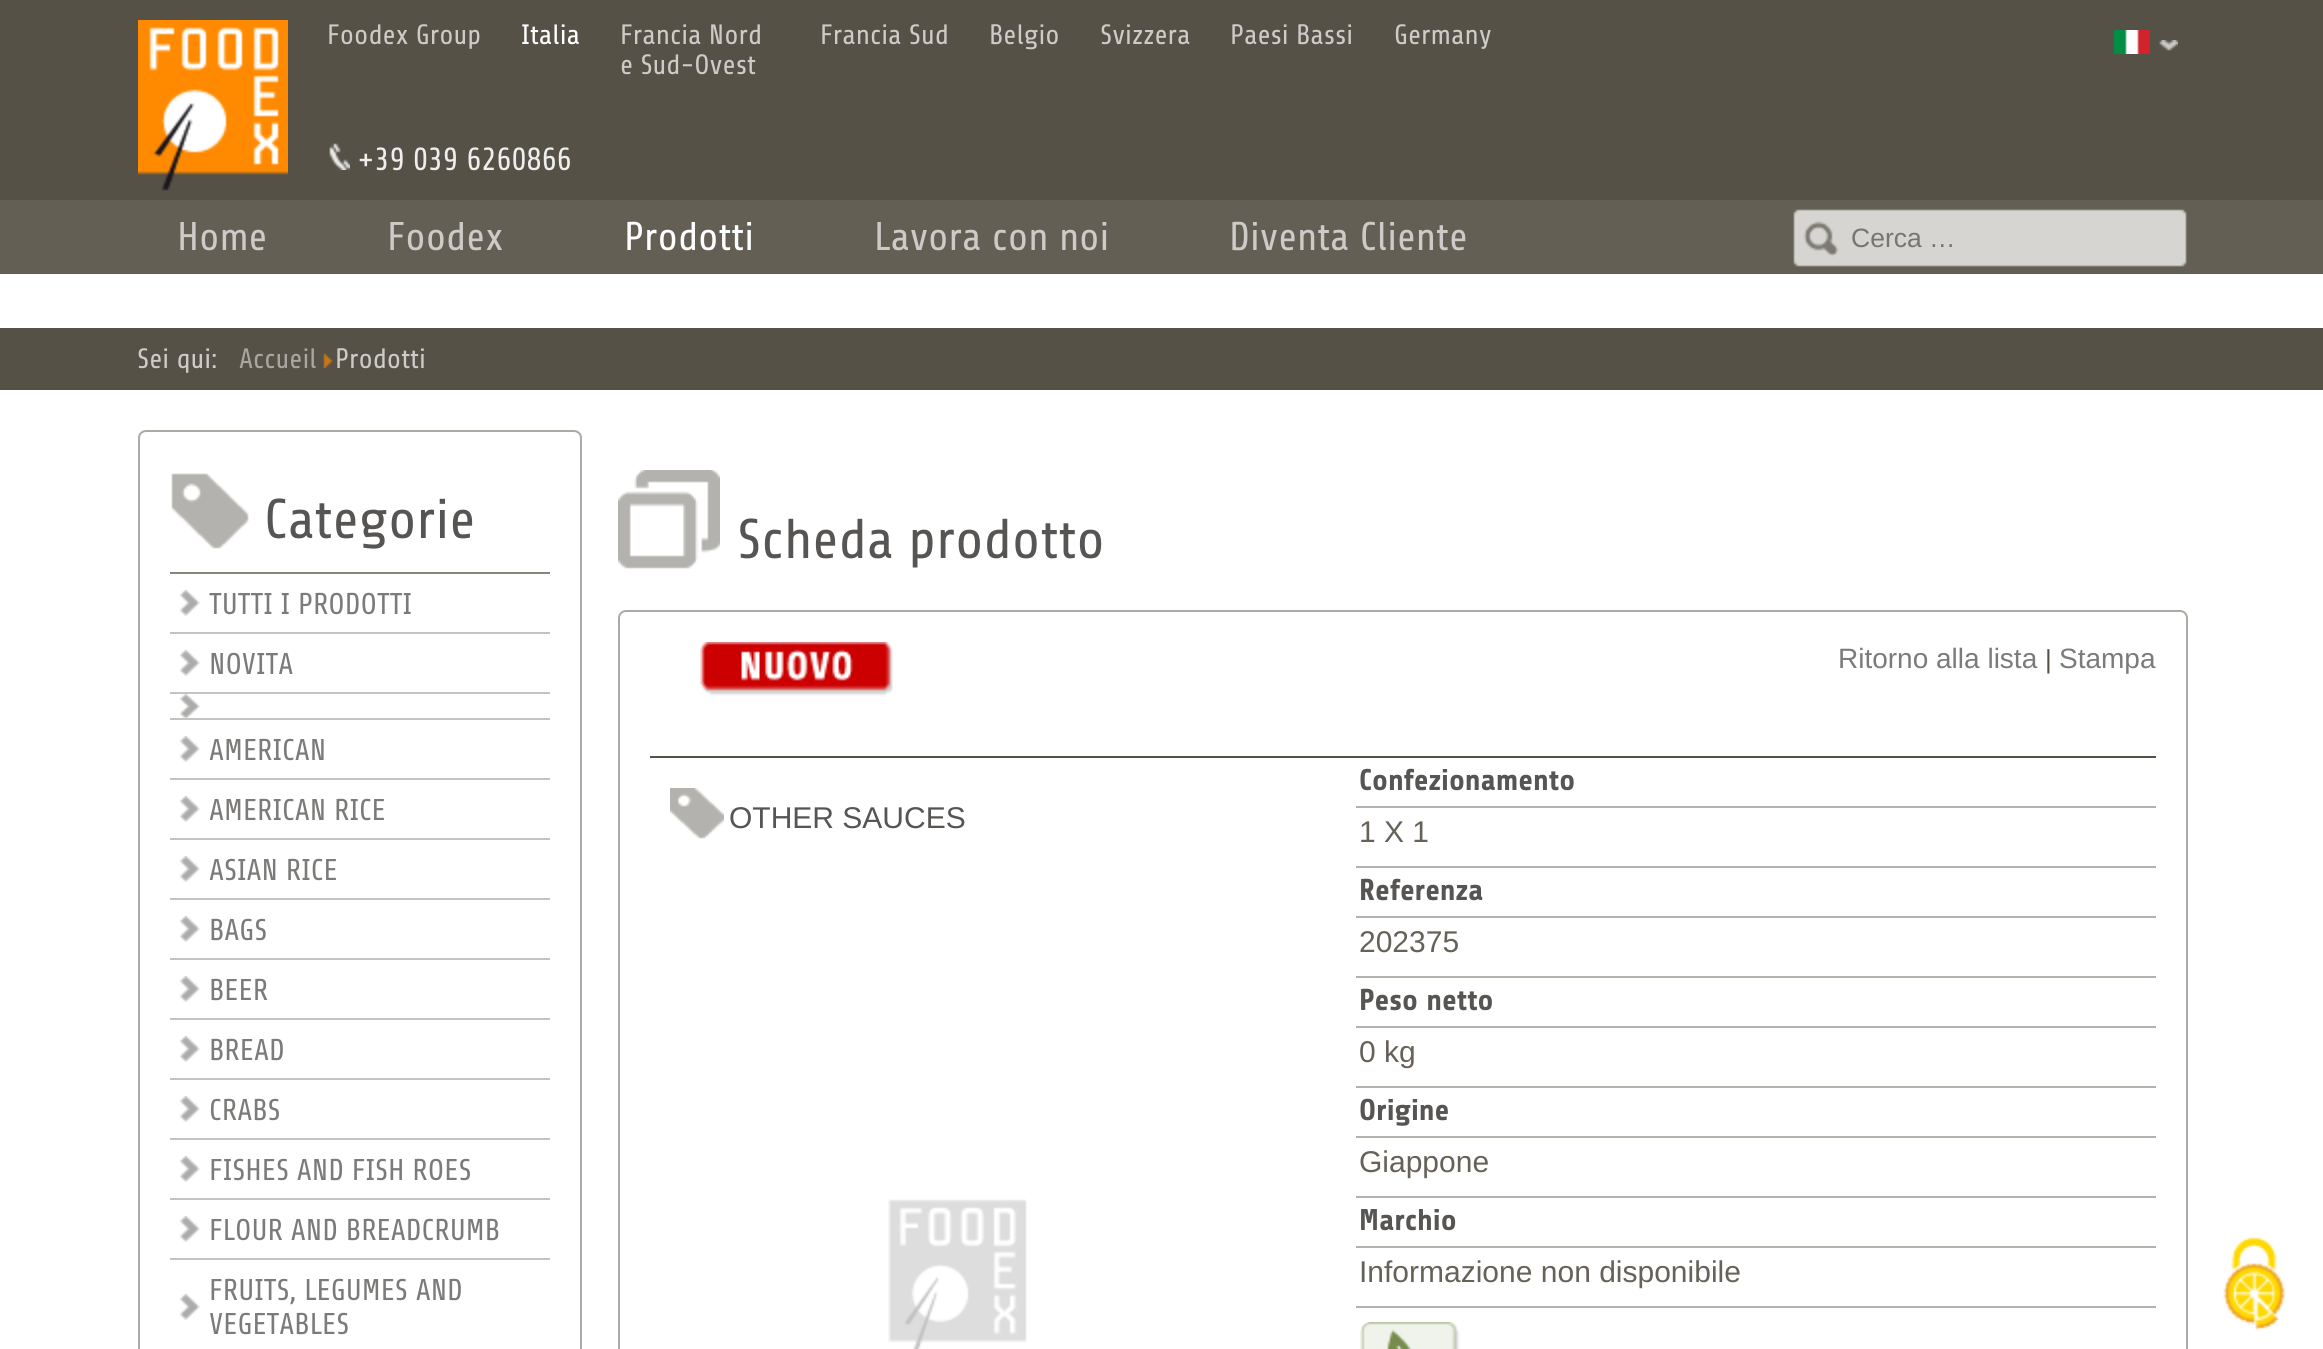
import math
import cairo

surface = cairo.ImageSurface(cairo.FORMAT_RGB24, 2323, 1349)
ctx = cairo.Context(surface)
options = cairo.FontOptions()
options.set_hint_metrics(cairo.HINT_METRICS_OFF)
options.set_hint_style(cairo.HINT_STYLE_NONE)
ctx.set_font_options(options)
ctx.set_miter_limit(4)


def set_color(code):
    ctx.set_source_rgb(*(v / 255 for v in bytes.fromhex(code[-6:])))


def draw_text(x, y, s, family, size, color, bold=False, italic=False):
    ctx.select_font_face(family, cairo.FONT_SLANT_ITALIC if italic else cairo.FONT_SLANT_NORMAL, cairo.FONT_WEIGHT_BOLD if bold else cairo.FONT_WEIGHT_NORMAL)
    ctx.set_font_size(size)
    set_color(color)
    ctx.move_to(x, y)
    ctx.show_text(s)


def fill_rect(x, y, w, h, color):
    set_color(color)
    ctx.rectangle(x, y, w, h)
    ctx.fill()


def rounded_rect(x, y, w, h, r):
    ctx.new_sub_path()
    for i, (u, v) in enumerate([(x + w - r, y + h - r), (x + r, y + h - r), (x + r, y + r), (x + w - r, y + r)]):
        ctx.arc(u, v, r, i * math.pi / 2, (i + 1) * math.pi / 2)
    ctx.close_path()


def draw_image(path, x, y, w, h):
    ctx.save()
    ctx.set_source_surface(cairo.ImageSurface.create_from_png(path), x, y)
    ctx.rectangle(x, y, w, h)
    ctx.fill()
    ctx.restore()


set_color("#ffffff")
ctx.paint()
fill_rect(0, 0, 2323, 200, "#555147")
draw_image("assets/img1.png", 138, 20, 150, 171)
draw_text(327, 44, "Foodex Group", "Share", 28, "#cccbc8")
draw_text(521, 44, "Italia", "Share", 28, "#ffffff")
draw_text(620, 44, "Francia Nord", "Share", 28, "#cccbc8")
draw_text(620, 74, "e Sud-Ovest", "Share", 28, "#cccbc8")
draw_text(820, 44, "Francia Sud", "Share", 28, "#cccbc8")
draw_text(989, 44, "Belgio", "Share", 28, "#cccbc8")
draw_text(1100, 44, "Svizzera", "Share", 28, "#cccbc8")
draw_text(1230, 44, "Paesi Bassi", "Share", 28, "#cccbc8")
draw_text(1394, 44, "Germany", "Share", 28, "#cccbc8")
draw_image("assets/img2.png", 2114, 30, 36, 24)
draw_image("assets/img3.png", 2159, 40, 19, 11)
draw_image("assets/img4.png", 329, 143, 21, 27)
draw_text(357, 170, "+39 039 6260866", "Share", 32, "#eeeeed")
fill_rect(0, 200, 2323, 74, "#635f54")
draw_text(177, 250, "Home", "Share", 40, "#cccbc8")
draw_text(387, 250, "Foodex", "Share", 40, "#cccbc8")
draw_text(624, 250, "Prodotti", "Share", 40, "#ffffff")
draw_text(874, 250, "Lavora con noi", "Share", 40, "#cccbc8")
draw_text(1229, 250, "Diventa Cliente", "Share", 40, "#cccbc8")
draw_image("assets/img5.png", 1793, 209, 394, 58)
draw_text(1851, 247, "Cerca …", "Liberation Sans", 26.5, "#757575")
fill_rect(0, 328, 2323, 62, "#565146")
draw_text(137, 368, "Sei qui:", "Share", 28, "#cccbc8")
draw_text(239, 368, "Accueil", "Share", 28, "#a9a6a1")
draw_image("assets/img6.png", 323, 353, 10, 15)
draw_text(335, 368, "Prodotti", "Share", 28, "#cccbc8")
rounded_rect(139, 431, 442, 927, 7)
set_color("#acaaa5")
ctx.stroke()
draw_image("assets/img7.png", 171, 473, 78, 76)
draw_text(264, 538, "Categorie", "Share", 56, "#575553")
draw_image("assets/img8.png", 180, 590, 20, 26)
fill_rect(170, 572, 380, 2, "#88857e")
draw_text(209, 614, "TUTTI I PRODOTTI", "Share", 30, "#7c7b7a")
draw_image("assets/img8.png", 180, 650, 20, 26)
fill_rect(170, 632, 380, 2, "#c5c4c0")
draw_text(209, 674, "NOVITA", "Share", 30, "#7c7b7a")
draw_image("assets/img9.png", 180, 694, 20, 24)
fill_rect(170, 692, 380, 2, "#c5c4c0")
draw_image("assets/img8.png", 180, 736, 20, 26)
fill_rect(170, 718, 380, 2, "#c5c4c0")
draw_text(209, 760, "AMERICAN", "Share", 30, "#7c7b7a")
draw_image("assets/img8.png", 180, 796, 20, 26)
fill_rect(170, 778, 380, 2, "#c5c4c0")
draw_text(209, 820, "AMERICAN RICE", "Share", 30, "#7c7b7a")
draw_image("assets/img8.png", 180, 856, 20, 26)
fill_rect(170, 838, 380, 2, "#c5c4c0")
draw_text(209, 880, "ASIAN RICE", "Share", 30, "#7c7b7a")
draw_image("assets/img8.png", 180, 916, 20, 26)
fill_rect(170, 898, 380, 2, "#c5c4c0")
draw_text(209, 940, "BAGS", "Share", 30, "#7c7b7a")
draw_image("assets/img8.png", 180, 976, 20, 26)
fill_rect(170, 958, 380, 2, "#c5c4c0")
draw_text(209, 1000, "BEER", "Share", 30, "#7c7b7a")
draw_image("assets/img8.png", 180, 1036, 20, 26)
fill_rect(170, 1018, 380, 2, "#c5c4c0")
draw_text(209, 1060, "BREAD", "Share", 30, "#7c7b7a")
draw_image("assets/img8.png", 180, 1096, 20, 26)
fill_rect(170, 1078, 380, 2, "#c5c4c0")
draw_text(209, 1120, "CRABS", "Share", 30, "#7c7b7a")
draw_image("assets/img8.png", 180, 1156, 20, 26)
fill_rect(170, 1138, 380, 2, "#c5c4c0")
draw_text(209, 1180, "FISHES AND FISH ROES", "Share", 30, "#7c7b7a")
draw_image("assets/img8.png", 180, 1216, 20, 26)
fill_rect(170, 1198, 380, 2, "#c5c4c0")
draw_text(209, 1240, "FLOUR AND BREADCRUMB", "Share", 30, "#7c7b7a")
draw_image("assets/img8.png", 180, 1294, 20, 26)
fill_rect(170, 1258, 380, 2, "#c5c4c0")
draw_text(209, 1300, "FRUITS, LEGUMES AND", "Share", 30, "#7c7b7a")
draw_text(209, 1334, "VEGETABLES", "Share", 30, "#7c7b7a")
draw_image("assets/img10.png", 618, 470, 102, 99)
draw_text(737, 558, "Scheda prodotto", "Share", 56, "#575553")
rounded_rect(619, 611, 1568, 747, 7)
set_color("#acaaa5")
ctx.stroke()
fill_rect(650, 756, 1506, 2, "#555147")
draw_image("assets/img11.png", 700, 642, 193, 54)
draw_text(1838, 668, "Ritorno alla lista", "Liberation Sans", 28, "#7c7b7a")
draw_text(2045, 668, "|", "Liberation Sans", 26, "#555147")
draw_text(2059, 668, "Stampa", "Liberation Sans", 28, "#7c7b7a")
draw_image("assets/img12.png", 670, 788, 54, 51)
draw_text(729, 828, "OTHER SAUCES", "Liberation Sans", 30, "#575553")
draw_image("assets/img13.png", 888, 1199, 139, 150)
fill_rect(1356, 806, 800, 2, "#b4b3ae")
draw_text(1359, 790, "Confezionamento", "Share", 30, "#575553", bold=True)
fill_rect(1356, 866, 800, 2, "#b4b3ae")
draw_text(1359, 842, "1 X 1", "Liberation Sans", 30, "#666259")
fill_rect(1356, 916, 800, 2, "#b4b3ae")
draw_text(1359, 900, "Referenza", "Share", 30, "#575553", bold=True)
fill_rect(1356, 976, 800, 2, "#b4b3ae")
draw_text(1359, 952, "202375", "Liberation Sans", 30, "#666259")
fill_rect(1356, 1026, 800, 2, "#b4b3ae")
draw_text(1359, 1010, "Peso netto", "Share", 30, "#575553", bold=True)
fill_rect(1356, 1086, 800, 2, "#b4b3ae")
draw_text(1359, 1062, "0 kg", "Liberation Sans", 30, "#666259")
fill_rect(1356, 1136, 800, 2, "#b4b3ae")
draw_text(1359, 1120, "Origine", "Share", 30, "#575553", bold=True)
fill_rect(1356, 1196, 800, 2, "#b4b3ae")
draw_text(1359, 1172, "Giappone", "Liberation Sans", 30, "#666259")
fill_rect(1356, 1246, 800, 2, "#b4b3ae")
draw_text(1359, 1230, "Marchio", "Share", 30, "#575553", bold=True)
fill_rect(1356, 1306, 800, 2, "#b4b3ae")
draw_text(1359, 1282, "Informazione non disponibile", "Liberation Sans", 30, "#666259")
draw_image("assets/img14.png", 1360, 1322, 100, 27)
draw_image("assets/img15.png", 2223, 1237, 62, 94)
surface.write_to_png("output.png")
